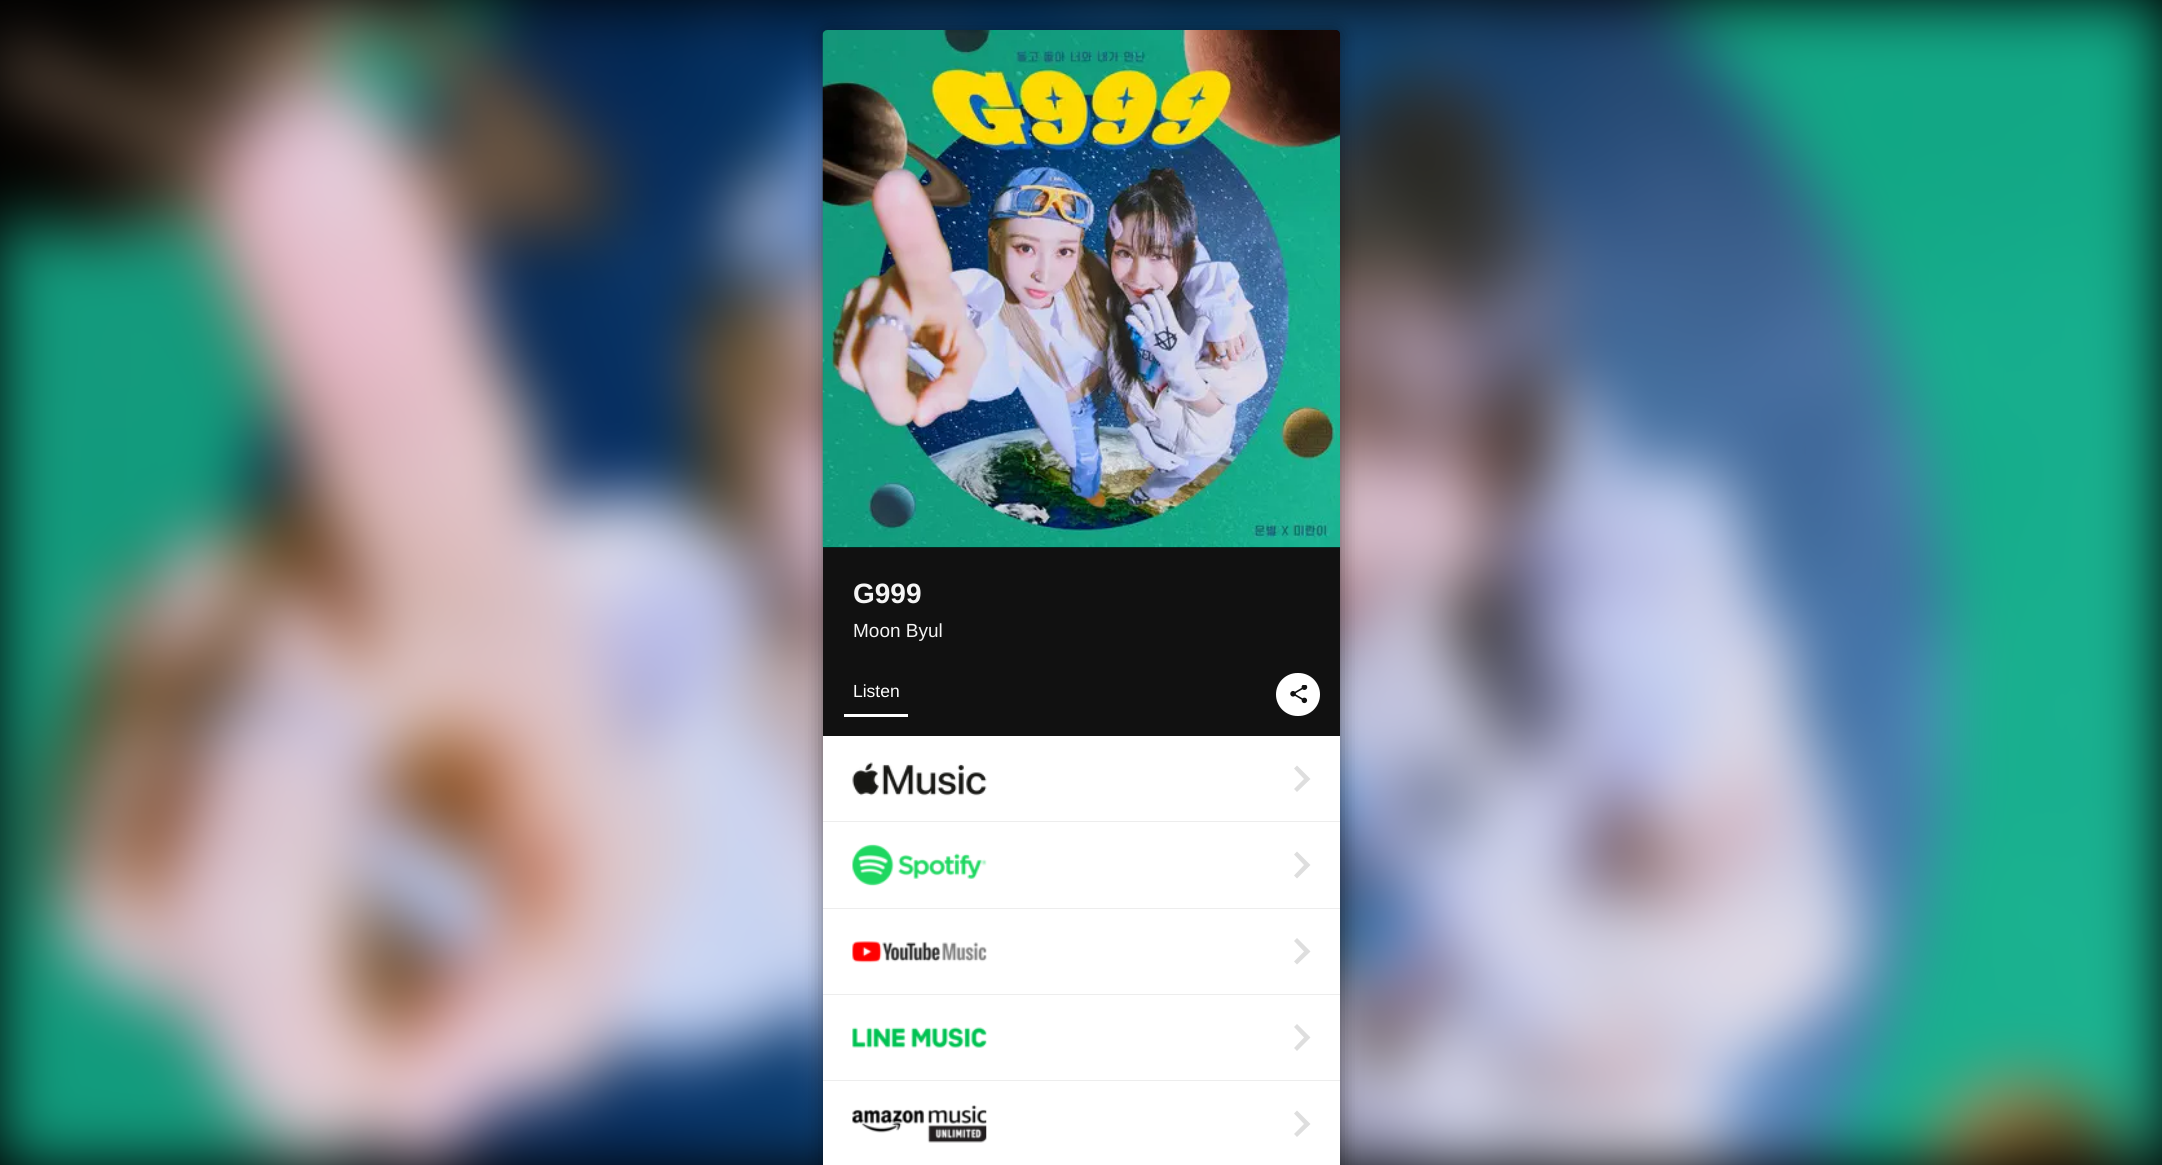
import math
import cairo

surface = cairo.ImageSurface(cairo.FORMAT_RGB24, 2162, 1165)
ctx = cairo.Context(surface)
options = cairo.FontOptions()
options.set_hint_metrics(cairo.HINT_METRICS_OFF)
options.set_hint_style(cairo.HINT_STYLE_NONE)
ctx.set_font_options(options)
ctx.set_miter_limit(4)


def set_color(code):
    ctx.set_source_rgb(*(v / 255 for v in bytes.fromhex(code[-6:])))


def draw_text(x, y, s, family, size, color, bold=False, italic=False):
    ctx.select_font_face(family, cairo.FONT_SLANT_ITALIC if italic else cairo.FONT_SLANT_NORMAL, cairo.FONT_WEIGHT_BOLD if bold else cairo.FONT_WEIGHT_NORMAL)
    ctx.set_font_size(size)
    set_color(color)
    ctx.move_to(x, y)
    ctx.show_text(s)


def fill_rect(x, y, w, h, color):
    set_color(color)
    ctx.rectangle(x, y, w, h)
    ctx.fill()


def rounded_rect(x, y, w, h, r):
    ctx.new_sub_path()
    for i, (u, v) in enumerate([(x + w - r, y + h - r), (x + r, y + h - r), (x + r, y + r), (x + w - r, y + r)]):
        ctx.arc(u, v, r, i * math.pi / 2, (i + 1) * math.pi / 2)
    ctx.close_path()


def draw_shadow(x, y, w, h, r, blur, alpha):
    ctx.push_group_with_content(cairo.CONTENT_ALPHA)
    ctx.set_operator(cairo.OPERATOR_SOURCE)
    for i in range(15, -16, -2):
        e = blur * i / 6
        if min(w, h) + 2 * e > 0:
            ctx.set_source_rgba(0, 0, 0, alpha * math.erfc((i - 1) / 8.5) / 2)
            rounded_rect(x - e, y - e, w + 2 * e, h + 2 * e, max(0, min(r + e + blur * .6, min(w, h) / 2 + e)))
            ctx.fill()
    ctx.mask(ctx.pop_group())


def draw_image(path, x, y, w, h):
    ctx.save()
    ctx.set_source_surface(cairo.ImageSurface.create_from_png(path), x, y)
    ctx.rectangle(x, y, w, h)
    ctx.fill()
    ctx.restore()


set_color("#000000")
ctx.paint()
draw_image("assets/img1.png", 0, 0, 2162, 1165)
draw_shadow(823, 30, 517, 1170, 5, 10, 0.47)
set_color("#000000")
ctx.new_path()
ctx.move_to(828, 30)
ctx.line_to(1335, 30)
ctx.curve_to(1338, 30, 1340, 32, 1340, 35)
ctx.line_to(1340, 548)
ctx.line_to(823, 548)
ctx.line_to(823, 35)
ctx.curve_to(823, 32, 825, 30, 828, 30)
ctx.close_path()
ctx.fill()
draw_image("assets/img2.png", 822, 30, 518, 518)
fill_rect(823, 548, 517, 188, "#111111")
draw_text(853, 603, "G999", "Liberation Sans", 28, "#f5f5f5", bold=True)
draw_text(853, 637, "Moon Byul", "Liberation Sans", 19, "#f5f5f5")
draw_text(853, 697, "Listen", "Liberation Sans", 17.5, "#ffffff")
fill_rect(844, 714, 64, 3, "#ffffff")
rounded_rect(1276, 673, 44, 43, 21.5)
ctx.fill()
draw_image("assets/img3.png", 1290, 685, 18, 19)
fill_rect(823, 736, 517, 429, "#ffffff")
draw_image("assets/img4.png", 852, 762, 135, 34)
set_color("#dedede")
ctx.new_path()
ctx.move_to(1294, 789)
ctx.line_to(1304, 779)
ctx.line_to(1294, 768.5)
ctx.line_to(1297, 765.5)
ctx.line_to(1310.5, 779)
ctx.line_to(1297, 792)
ctx.close_path()
ctx.fill()
fill_rect(823, 821, 517, 1, "#ededed")
draw_image("assets/img5.png", 852, 844, 135, 42)
set_color("#dedede")
ctx.new_path()
ctx.move_to(1294, 875.5)
ctx.line_to(1304, 865)
ctx.line_to(1294, 854.5)
ctx.line_to(1297, 851.5)
ctx.line_to(1310.5, 865)
ctx.line_to(1297, 878.5)
ctx.close_path()
ctx.fill()
fill_rect(823, 908, 517, 1, "#ededed")
draw_image("assets/img6.png", 852, 941, 135, 22)
set_color("#dedede")
ctx.new_path()
ctx.move_to(1294, 961.5)
ctx.line_to(1304, 951.5)
ctx.line_to(1294, 941)
ctx.line_to(1297, 938)
ctx.line_to(1310.5, 951.5)
ctx.line_to(1297, 964.5)
ctx.close_path()
ctx.fill()
fill_rect(823, 994, 517, 1, "#ededed")
draw_image("assets/img7.png", 852, 1027, 135, 21)
set_color("#dedede")
ctx.new_path()
ctx.move_to(1294, 1048)
ctx.line_to(1304, 1037.5)
ctx.line_to(1294, 1027)
ctx.line_to(1297, 1024)
ctx.line_to(1310.5, 1037.5)
ctx.line_to(1297, 1051)
ctx.close_path()
ctx.fill()
fill_rect(823, 1080, 517, 1, "#ededed")
draw_image("assets/img8.png", 852, 1105, 135, 38)
set_color("#dedede")
ctx.new_path()
ctx.move_to(1294, 1134)
ctx.line_to(1304, 1124)
ctx.line_to(1294, 1113.5)
ctx.line_to(1297, 1110.5)
ctx.line_to(1310.5, 1124)
ctx.line_to(1297, 1137)
ctx.close_path()
ctx.fill()
surface.write_to_png("output.png")
